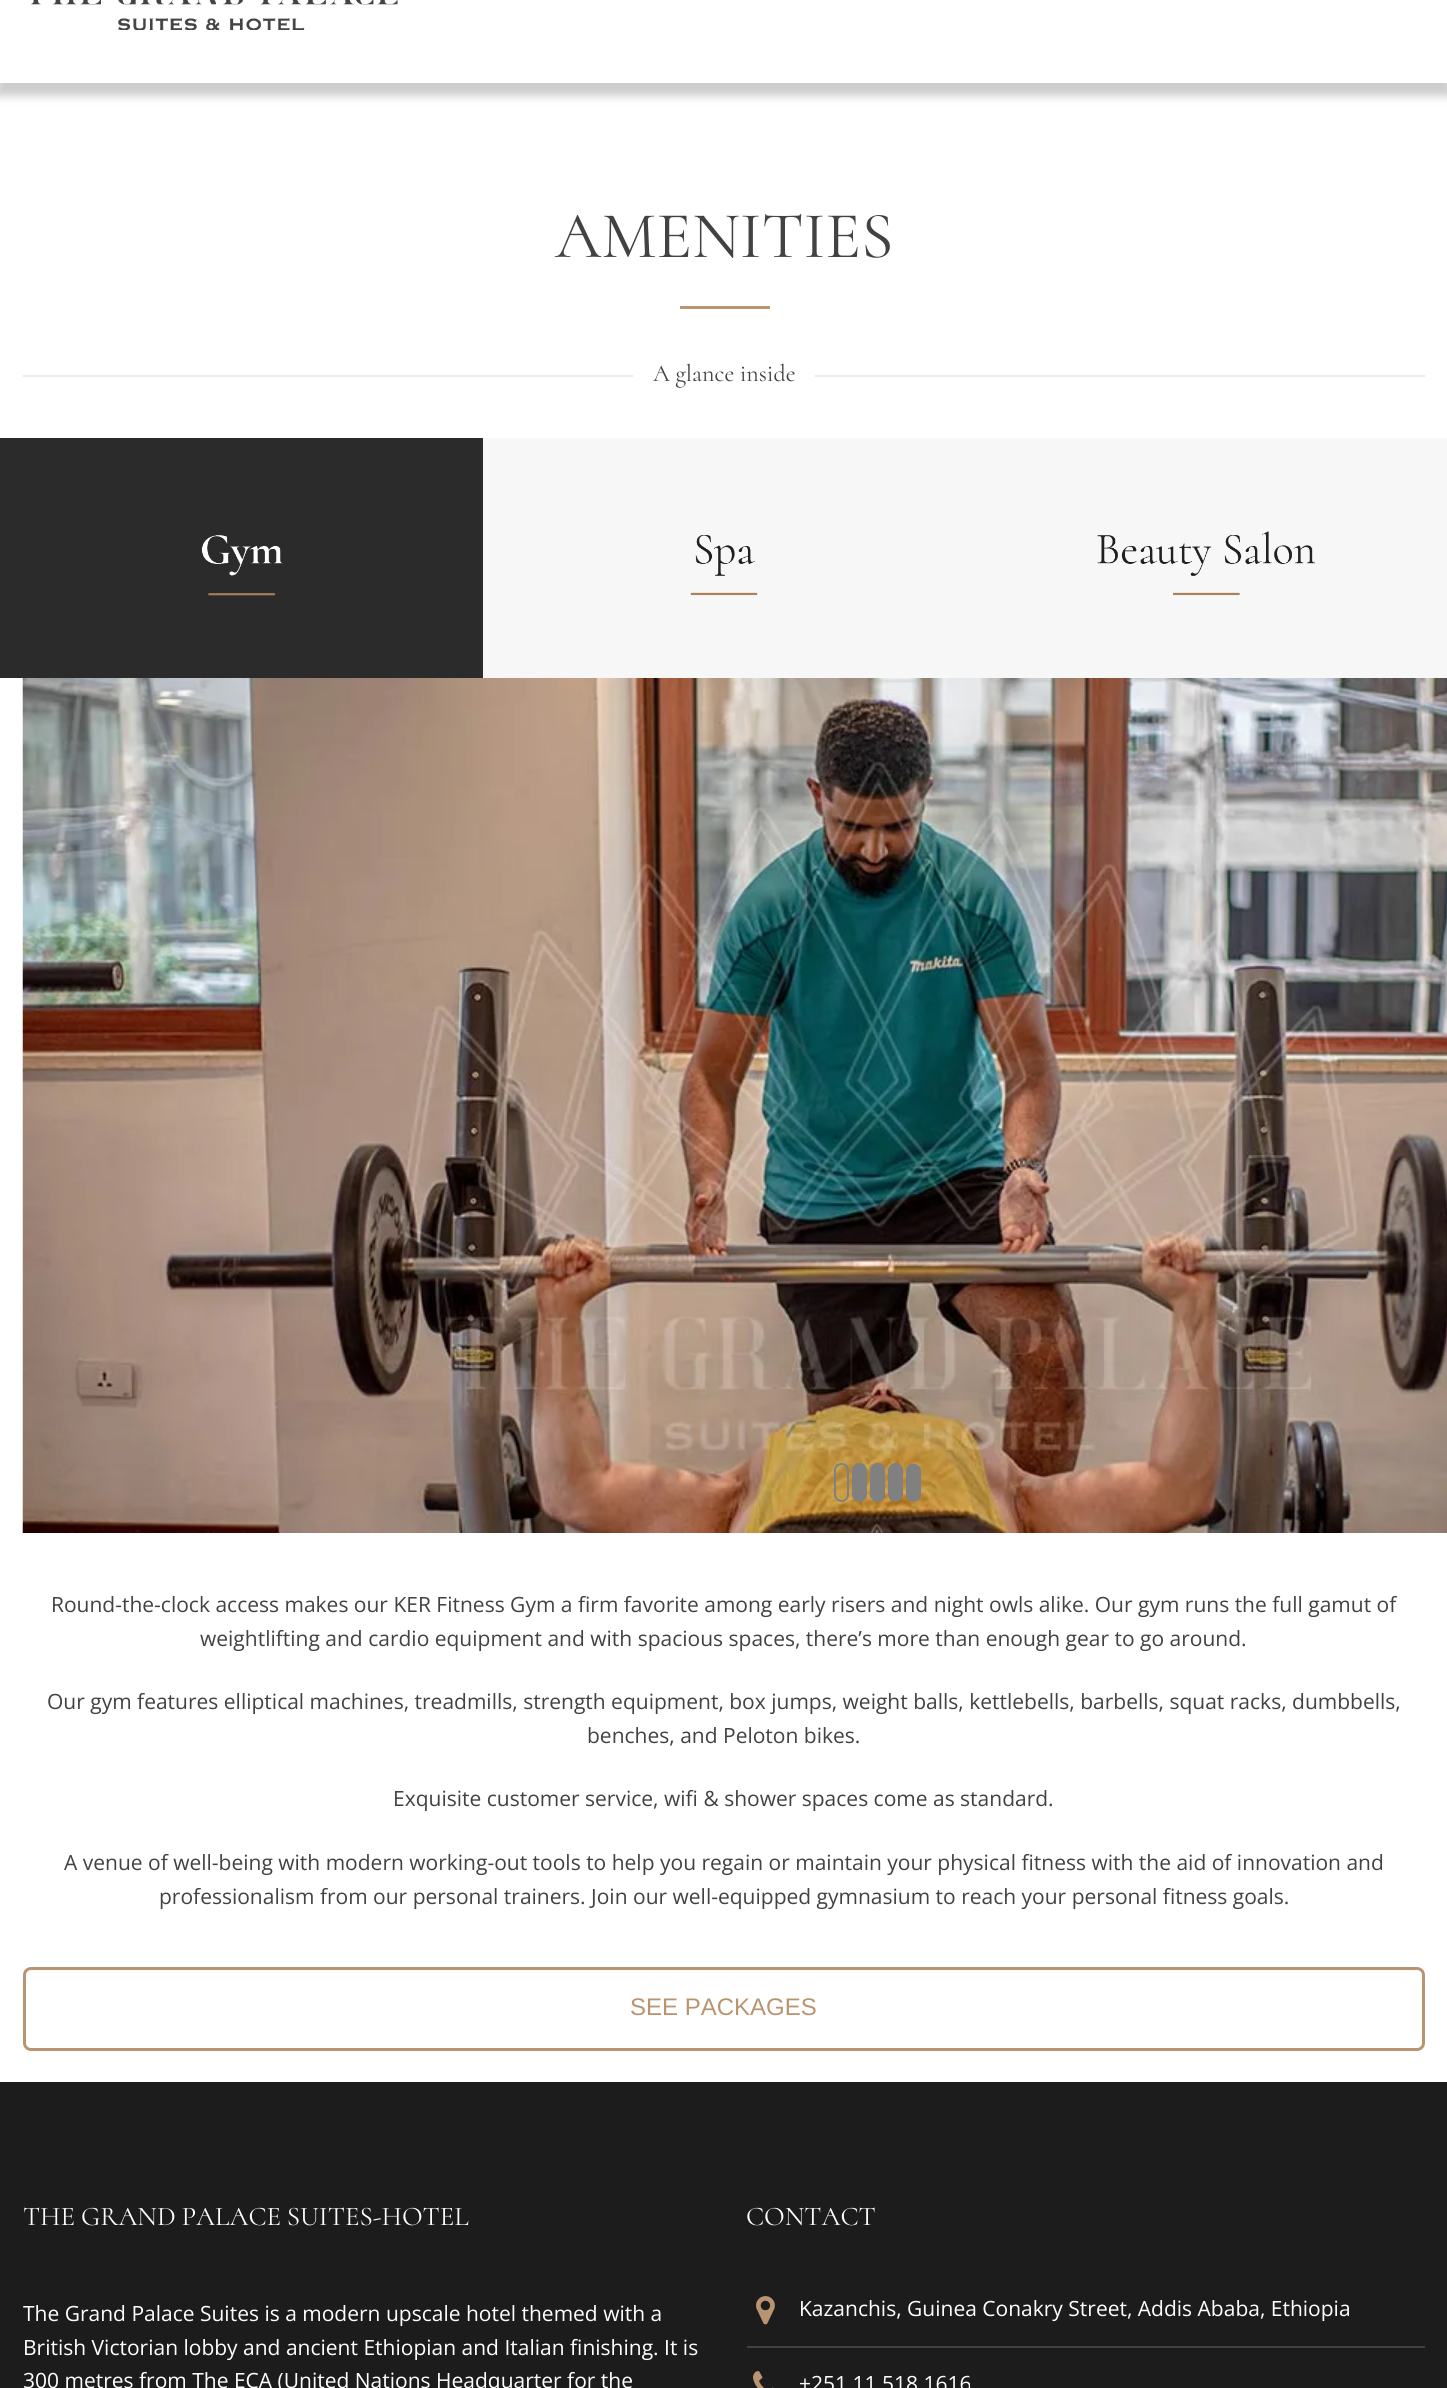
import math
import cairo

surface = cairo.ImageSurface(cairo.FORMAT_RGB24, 1447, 2388)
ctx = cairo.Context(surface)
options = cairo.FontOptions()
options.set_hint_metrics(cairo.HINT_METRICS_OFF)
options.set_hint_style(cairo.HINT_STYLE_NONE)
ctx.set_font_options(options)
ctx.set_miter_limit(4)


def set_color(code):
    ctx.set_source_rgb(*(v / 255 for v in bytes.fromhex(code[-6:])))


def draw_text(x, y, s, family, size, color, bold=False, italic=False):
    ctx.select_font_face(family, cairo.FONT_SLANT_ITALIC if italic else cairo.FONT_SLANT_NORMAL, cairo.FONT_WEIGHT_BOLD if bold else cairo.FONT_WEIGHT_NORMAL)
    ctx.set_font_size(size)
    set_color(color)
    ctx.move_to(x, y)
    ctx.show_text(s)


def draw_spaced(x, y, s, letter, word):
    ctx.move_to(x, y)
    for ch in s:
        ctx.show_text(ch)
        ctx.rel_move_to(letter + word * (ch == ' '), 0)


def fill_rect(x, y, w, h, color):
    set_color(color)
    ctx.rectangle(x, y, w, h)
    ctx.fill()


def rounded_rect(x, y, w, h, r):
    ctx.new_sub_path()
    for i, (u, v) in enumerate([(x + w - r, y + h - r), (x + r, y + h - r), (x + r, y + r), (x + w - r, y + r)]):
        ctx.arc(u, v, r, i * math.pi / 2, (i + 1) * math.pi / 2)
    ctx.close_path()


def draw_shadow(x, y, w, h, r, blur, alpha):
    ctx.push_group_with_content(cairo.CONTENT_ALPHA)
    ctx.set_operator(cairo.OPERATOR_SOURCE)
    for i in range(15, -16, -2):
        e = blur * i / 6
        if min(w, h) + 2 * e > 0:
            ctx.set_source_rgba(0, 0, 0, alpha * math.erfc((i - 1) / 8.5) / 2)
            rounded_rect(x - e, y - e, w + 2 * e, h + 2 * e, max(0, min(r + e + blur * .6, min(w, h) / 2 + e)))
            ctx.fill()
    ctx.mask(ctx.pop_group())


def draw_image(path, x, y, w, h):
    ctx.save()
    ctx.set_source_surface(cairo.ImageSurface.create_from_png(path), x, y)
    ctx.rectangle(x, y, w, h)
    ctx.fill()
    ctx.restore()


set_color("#ffffff")
ctx.paint()
ctx.save()
ctx.set_fill_rule(cairo.FILL_RULE_EVEN_ODD)
ctx.new_path()
ctx.move_to(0, 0)
ctx.line_to(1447, 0)
ctx.line_to(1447, 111)
ctx.line_to(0, 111)
ctx.close_path()
ctx.move_to(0, -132)
ctx.line_to(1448, -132)
ctx.line_to(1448, 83)
ctx.line_to(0, 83)
ctx.close_path()
ctx.clip()
set_color("#000000")
draw_shadow(-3, -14, 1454, 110, 0, 4.5, 0.2)
ctx.restore()
draw_image("assets/img1.png", 31, 0, 367, 30)
draw_text(555, 257, "AMENITIES", "Cormorant", 66, "#424242")
fill_rect(680, 306, 90, 3, "#b99470")
fill_rect(23, 375, 610, 2, "#ebebeb")
draw_text(653, 381, "A glance inside", "Cormorant", 24, "#424242")
fill_rect(815, 375, 610, 2, "#ebebeb")
fill_rect(483, 438, 964, 240, "#f7f7f7")
fill_rect(0, 438, 483, 240, "#2b2b2b")
draw_image("assets/img2.png", 201, 535, 82, 61)
draw_image("assets/img3.png", 690, 535, 68, 61)
draw_image("assets/img4.png", 1097, 531, 218, 65)
draw_image("assets/img5.png", 22, 678, 1425, 855)
rounded_rect(835, 1464, 13, 37, 6.5)
set_color("#808080")
ctx.stroke()
rounded_rect(853, 1464, 13, 37, 6.5)
ctx.fill_preserve()
ctx.stroke()
rounded_rect(871, 1464, 13, 37, 6.5)
ctx.fill_preserve()
ctx.stroke()
rounded_rect(889, 1464, 13, 37, 6.5)
ctx.fill_preserve()
ctx.stroke()
rounded_rect(906, 1464, 15, 38, 7.5)
ctx.fill()
ctx.set_fill_rule(cairo.FILL_RULE_EVEN_ODD)
ctx.new_path()
ctx.move_to(913.5, 1464)
ctx.curve_to(917.5, 1464, 921, 1467.5, 921, 1471.5)
ctx.line_to(921, 1494)
ctx.curve_to(921, 1498, 917.5, 1501.5, 913.5, 1501.5)
ctx.curve_to(909.5, 1501.5, 906, 1498, 906, 1494)
ctx.line_to(906, 1471.5)
ctx.curve_to(906, 1467.5, 909.5, 1464, 913.5, 1464)
ctx.close_path()
ctx.move_to(913.5, 1465.5)
ctx.curve_to(917, 1465.5, 919.5, 1468, 919.5, 1471.5)
ctx.line_to(919.5, 1494)
ctx.curve_to(919.5, 1498, 917, 1501.5, 913.5, 1501.5)
ctx.curve_to(910, 1501.5, 907.5, 1498, 907.5, 1494)
ctx.line_to(907.5, 1471.5)
ctx.curve_to(907.5, 1468, 910, 1465.5, 913.5, 1465.5)
ctx.close_path()
ctx.fill()
draw_text(51, 1612, "Round-the-clock access makes our KER Fitness Gym a firm favorite among early risers and night owls alike. Our gym runs the full gamut of", "Open Sans", 21, "#424242")
draw_text(200, 1646, "weightlifting and cardio equipment and with spacious spaces, there’s more than enough gear to go around.", "Open Sans", 21, "#424242")
draw_text(47, 1709, "Our gym features elliptical machines, treadmills, strength equipment, box jumps, weight balls, kettlebells, barbells, squat racks, dumbbells,", "Open Sans", 21, "#424242")
draw_text(587, 1743, "benches, and Peloton bikes.", "Open Sans", 21, "#424242")
draw_text(393, 1806, "Exquisite customer service, wifi & shower spaces come as standard.", "Open Sans", 21, "#424242")
draw_text(64, 1870, "A venue of well-being with modern working-out tools to help you regain or maintain your physical fitness with the aid of innovation and", "Open Sans", 21, "#424242")
draw_text(159, 1904, "professionalism from our personal trainers. Join our well-equipped gymnasium to reach your personal fitness goals.", "Open Sans", 21, "#424242")
rounded_rect(24.5, 1968.5, 1399, 81, 6.5)
set_color("#b99470")
ctx.set_line_width(3)
ctx.stroke()
draw_text(630, 2015, "SEE PACKAGES", "Liberation Sans", 24, "#b99470")
fill_rect(0, 2082, 1447, 306, "#1c1c1c")
ctx.select_font_face("Cormorant")
ctx.set_font_size(27)
set_color("#ffffff")
draw_spaced(23, 2225, "THE GRAND PALACE SUITES-HOTEL", 0, -0.5)
draw_text(23, 2321, "The Grand Palace Suites is a modern upscale hotel themed with a", "Open Sans", 21, "#ffffff")
draw_text(23, 2355, "British Victorian lobby and ancient Ethiopian and Italian finishing. It is", "Open Sans", 21, "#ffffff")
draw_text(23, 2388, "300 metres from The ECA (United Nations Headquarter for the", "Open Sans", 21, "#ffffff")
draw_text(746, 2225, "CONTACT", "Cormorant", 27, "#ffffff")
fill_rect(747, 2346, 678, 2, "#424242")
draw_image("assets/img6.png", 756, 2296, 19, 29)
draw_text(799, 2316, "Kazanchis, Guinea Conakry Street, Addis Ababa, Ethiopia", "Open Sans", 21, "#ffffff")
draw_image("assets/img7.png", 753, 2371, 21, 17)
draw_text(799, 2391, "+251 11 518 1616", "Open Sans", 21, "#ffffff")
surface.write_to_png("output.png")
